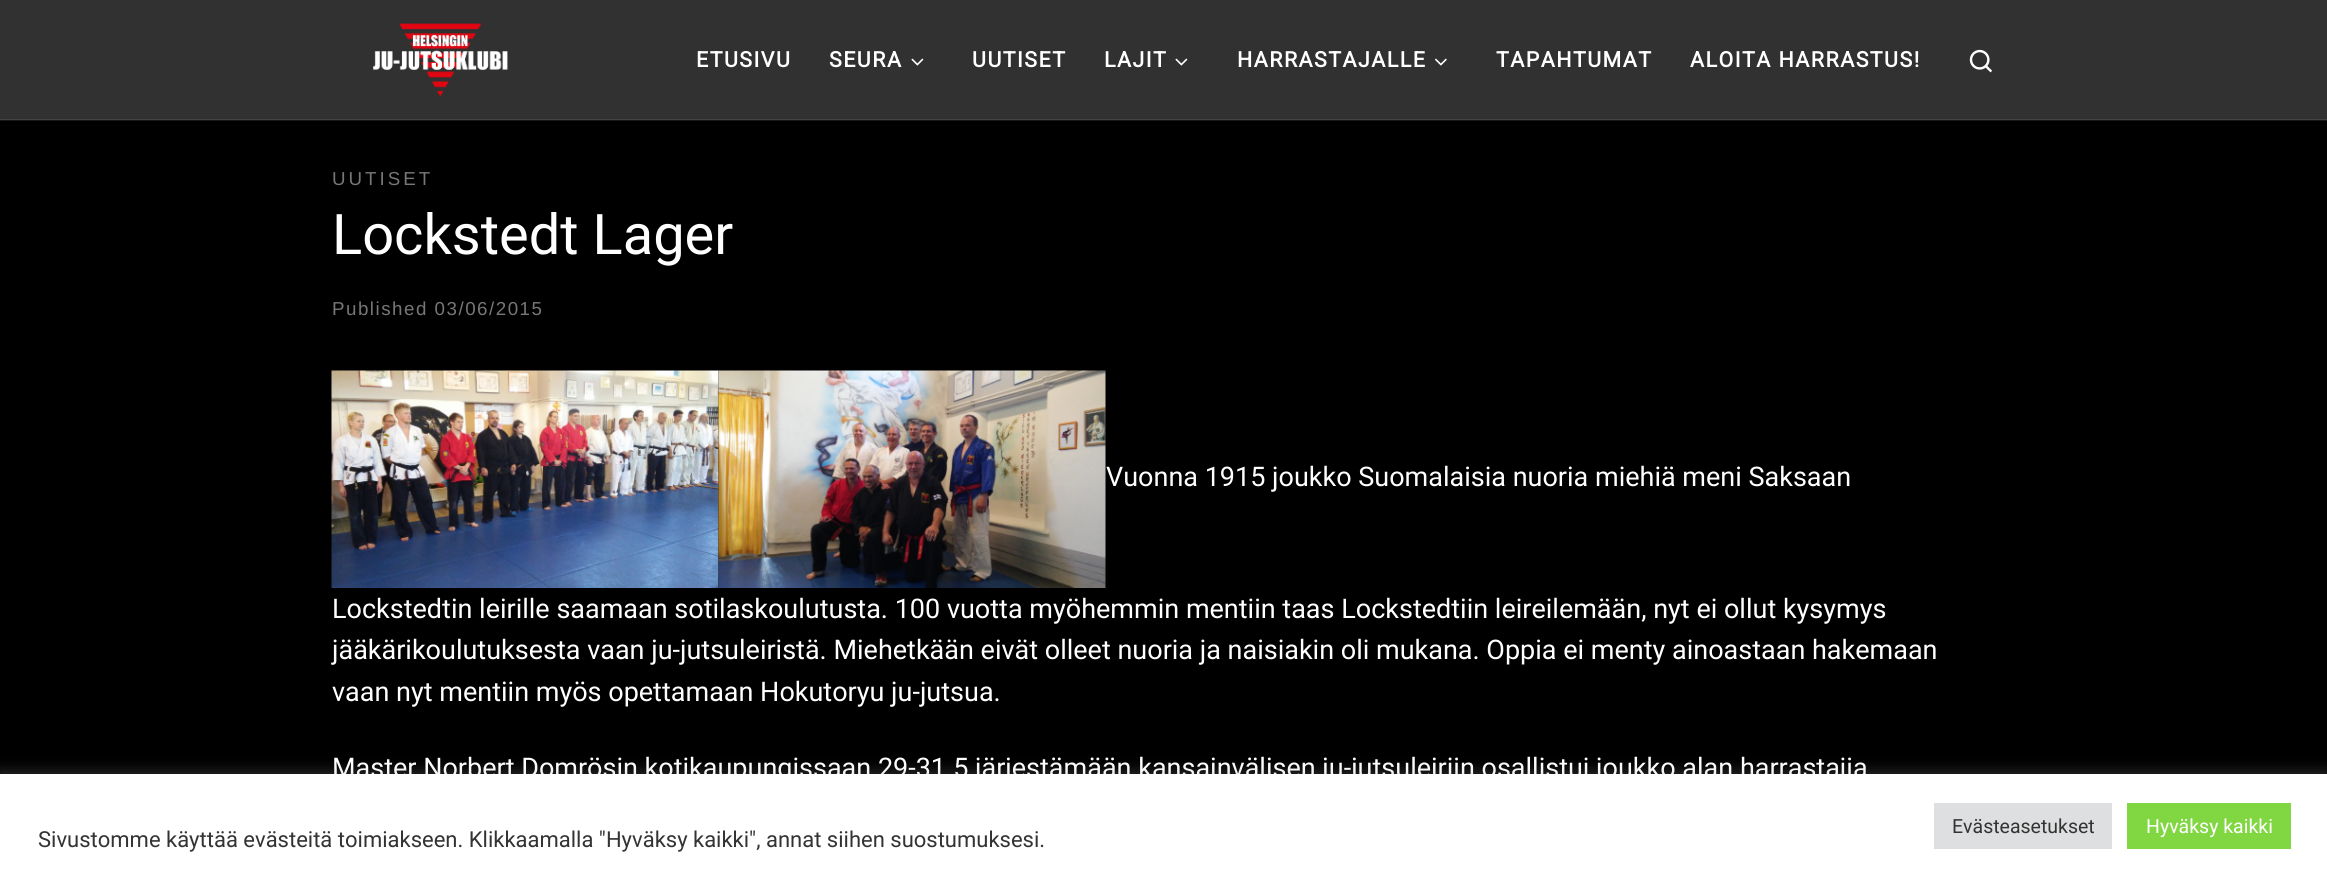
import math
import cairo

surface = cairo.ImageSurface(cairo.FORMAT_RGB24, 2327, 877)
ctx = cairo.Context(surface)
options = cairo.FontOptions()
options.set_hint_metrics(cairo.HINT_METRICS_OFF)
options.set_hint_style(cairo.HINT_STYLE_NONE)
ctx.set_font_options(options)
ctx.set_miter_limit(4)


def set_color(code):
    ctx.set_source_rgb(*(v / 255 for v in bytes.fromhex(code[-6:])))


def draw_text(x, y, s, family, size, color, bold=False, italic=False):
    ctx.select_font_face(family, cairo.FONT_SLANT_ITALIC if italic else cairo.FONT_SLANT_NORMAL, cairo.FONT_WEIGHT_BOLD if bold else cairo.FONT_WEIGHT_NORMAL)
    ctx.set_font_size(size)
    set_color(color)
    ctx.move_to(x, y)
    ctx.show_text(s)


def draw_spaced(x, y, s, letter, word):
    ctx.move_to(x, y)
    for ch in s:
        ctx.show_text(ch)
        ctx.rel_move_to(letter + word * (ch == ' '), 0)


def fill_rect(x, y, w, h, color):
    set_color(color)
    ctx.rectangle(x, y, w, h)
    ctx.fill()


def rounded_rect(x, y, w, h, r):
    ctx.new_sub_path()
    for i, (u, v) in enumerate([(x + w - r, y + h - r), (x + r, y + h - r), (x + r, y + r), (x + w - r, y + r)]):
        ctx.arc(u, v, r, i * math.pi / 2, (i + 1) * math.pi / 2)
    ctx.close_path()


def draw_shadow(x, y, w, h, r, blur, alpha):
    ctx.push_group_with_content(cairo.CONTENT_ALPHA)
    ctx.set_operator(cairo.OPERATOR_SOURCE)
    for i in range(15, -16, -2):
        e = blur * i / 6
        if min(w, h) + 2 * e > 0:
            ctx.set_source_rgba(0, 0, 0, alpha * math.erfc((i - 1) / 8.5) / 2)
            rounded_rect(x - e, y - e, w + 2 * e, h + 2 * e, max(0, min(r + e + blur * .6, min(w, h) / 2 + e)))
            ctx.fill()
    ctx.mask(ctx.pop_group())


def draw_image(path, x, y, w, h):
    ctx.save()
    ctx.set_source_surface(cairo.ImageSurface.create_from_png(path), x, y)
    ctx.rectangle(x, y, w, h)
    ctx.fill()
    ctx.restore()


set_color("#000000")
ctx.paint()
fill_rect(0, 0, 2327, 120, "#313131")
ctx.set_source_rgba(1, 1, 1, 0.09)
ctx.rectangle(0, 119, 2327, 2)
ctx.fill()
draw_image("assets/img1.png", 373, 23, 135, 74)
ctx.select_font_face("Roboto", cairo.FONT_SLANT_NORMAL, cairo.FONT_WEIGHT_BOLD)
ctx.set_font_size(21.4)
set_color("#ffffff")
draw_spaced(696, 67, "ETUSIVU", 1.5, 0)
draw_spaced(829, 67, "SEURA", 1.5, 0)
draw_image("assets/img2.png", 911, 58, 13, 8)
draw_spaced(972, 67, "UUTISET", 1.5, 0)
draw_spaced(1104, 67, "LAJIT", 1.5, 0)
draw_image("assets/img2.png", 1175, 58, 13, 8)
draw_spaced(1237, 67, "HARRASTAJALLE", 1.5, 0)
draw_image("assets/img3.png", 1435, 58, 12, 8)
draw_spaced(1496, 67, "TAPAHTUMAT", 1.5, 0)
draw_spaced(1690, 67, "ALOITA HARRASTUS!", 1.5, 0)
draw_image("assets/img4.png", 1969, 49, 24, 24)
ctx.select_font_face("Liberation Sans")
ctx.set_font_size(18.75)
set_color("#777777")
draw_spaced(332, 185, "UUTISET", 3, 0)
draw_text(332, 254, "Lockstedt Lager", "Roboto", 56, "#ffffff")
ctx.select_font_face("Liberation Sans")
ctx.set_font_size(18.75)
set_color("#777777")
draw_spaced(332, 315, "Published 03/06/2015", 1.5, 0)
draw_image("assets/img5.png", 331, 370, 388, 218)
draw_image("assets/img6.png", 718, 370, 388, 218)
draw_text(1106, 486, "Vuonna 1915 joukko Suomalaisia nuoria miehiä meni Saksaan", "Roboto", 27, "#ffffff")
draw_text(332, 618, "Lockstedtin leirille saamaan sotilaskoulutusta. 100 vuotta myöhemmin mentiin taas Lockstedtiin leireilemään, nyt ei ollut kysymys", "Roboto", 27, "#ffffff")
draw_text(332, 659, "jääkärikoulutuksesta vaan ju-jutsuleiristä. Miehetkään eivät olleet nuoria ja naisiakin oli mukana. Oppia ei menty ainoastaan hakemaan", "Roboto", 27, "#ffffff")
draw_text(332, 701, "vaan nyt mentiin myös opettamaan Hokutoryu ju-jutsua.", "Roboto", 27, "#ffffff")
draw_text(332, 777, "Master Norbert Domrösin kotikaupungissaan 29-31.5 järjestämään kansainvälisen ju-jutsuleiriin osallistui joukko alan harrastajia", "Roboto", 27, "#ffffff")
set_color("#acabab")
draw_shadow(0, 773, 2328, 103, 0, 7.5, 0.3)
fill_rect(0, 774, 2327, 103, "#ffffff")
fill_rect(1934, 803, 178, 46, "#dedfe0")
draw_text(1952, 833, "Evästeasetukset", "Roboto", 19.5, "#333333")
fill_rect(2127, 803, 164, 46, "#81d742")
draw_text(2146, 833, "Hyväksy kaikki", "Roboto", 19.5, "#ffffff")
draw_text(38, 847, "Sivustomme käyttää evästeitä toimiakseen. Klikkaamalla \"Hyväksy kaikki\", annat siihen suostumuksesi.", "Roboto", 22, "#333333")
surface.write_to_png("output.png")
